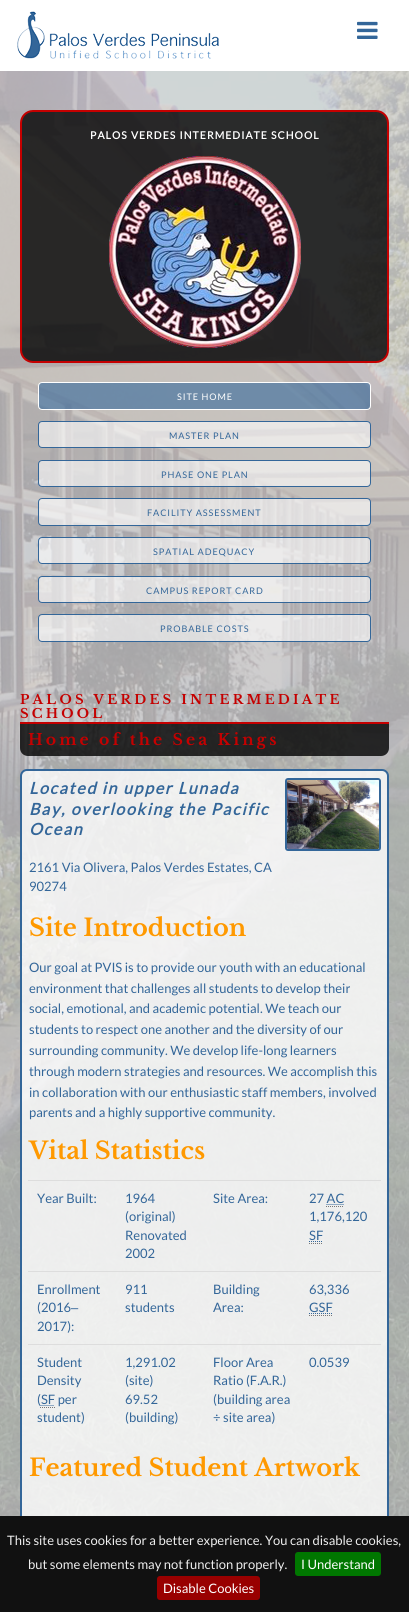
import math
import cairo

surface = cairo.ImageSurface(cairo.FORMAT_RGB24, 409, 1612)
ctx = cairo.Context(surface)
options = cairo.FontOptions()
options.set_hint_metrics(cairo.HINT_METRICS_OFF)
options.set_hint_style(cairo.HINT_STYLE_NONE)
ctx.set_font_options(options)
ctx.set_miter_limit(4)


def set_color(code):
    ctx.set_source_rgb(*(v / 255 for v in bytes.fromhex(code[-6:])))


def draw_text(x, y, s, family, size, color, bold=False, italic=False):
    ctx.select_font_face(family, cairo.FONT_SLANT_ITALIC if italic else cairo.FONT_SLANT_NORMAL, cairo.FONT_WEIGHT_BOLD if bold else cairo.FONT_WEIGHT_NORMAL)
    ctx.set_font_size(size)
    set_color(color)
    ctx.move_to(x, y)
    ctx.show_text(s)


def draw_spaced(x, y, s, letter, word):
    ctx.move_to(x, y)
    for ch in s:
        ctx.show_text(ch)
        ctx.rel_move_to(letter + word * (ch == ' '), 0)


def fill_rect(x, y, w, h, color):
    set_color(color)
    ctx.rectangle(x, y, w, h)
    ctx.fill()


def rounded_rect(x, y, w, h, r):
    ctx.new_sub_path()
    for i, (u, v) in enumerate([(x + w - r, y + h - r), (x + r, y + h - r), (x + r, y + r), (x + w - r, y + r)]):
        ctx.arc(u, v, r, i * math.pi / 2, (i + 1) * math.pi / 2)
    ctx.close_path()


def draw_image(path, x, y, w, h):
    ctx.save()
    ctx.set_source_surface(cairo.ImageSurface.create_from_png(path), x, y)
    ctx.rectangle(x, y, w, h)
    ctx.fill()
    ctx.restore()


set_color("#cccccc")
ctx.paint()
fill_rect(0, 0, 409, 71, "#ffffff")
draw_image("assets/img1.png", 17, 11, 202, 48)
draw_image("assets/img2.png", 357, 21, 21, 18)
draw_image("assets/img3.png", 0, 71, 409, 1445)
ctx.set_source_rgba(0, 0, 0, 0.8)
rounded_rect(21, 111, 367, 251, 12)
ctx.fill_preserve()
set_color("#c50000")
ctx.stroke()
ctx.select_font_face("Lato", cairo.FONT_SLANT_NORMAL, cairo.FONT_WEIGHT_BOLD)
ctx.set_font_size(10.4)
set_color("#ffffff")
draw_spaced(90, 139, "PALOS VERDES INTERMEDIATE SCHOOL", 1.05, 0)
draw_image("assets/img4.png", 109, 156, 192, 192)
ctx.set_source_rgba(0.2, 0.4, 0.6, 0.6)
rounded_rect(38.5, 382.5, 332, 27, 3.5)
ctx.fill_preserve()
set_color("#ffffff")
ctx.set_line_width(1)
ctx.stroke()
ctx.select_font_face("Lato")
ctx.set_font_size(9.1)
draw_spaced(177, 400, "SITE HOME", 0.9, 0)
ctx.set_source_rgba(1, 1, 1, 0.6)
rounded_rect(38.5, 421.5, 332, 26, 3.5)
ctx.fill_preserve()
set_color("#336699")
ctx.stroke()
draw_spaced(169, 439, "MASTER PLAN", 0.9, 0)
ctx.set_source_rgba(1, 1, 1, 0.6)
rounded_rect(38.5, 460.5, 332, 26, 3.5)
ctx.fill_preserve()
set_color("#336699")
ctx.stroke()
draw_spaced(161, 478, "PHASE ONE PLAN", 0.9, 0)
ctx.set_source_rgba(1, 1, 1, 0.6)
rounded_rect(38.5, 498.5, 332, 27, 3.5)
ctx.fill_preserve()
set_color("#336699")
ctx.stroke()
draw_spaced(147, 516, "FACILITY ASSESSMENT", 0.9, 0)
ctx.set_source_rgba(1, 1, 1, 0.6)
rounded_rect(38.5, 537.5, 332, 26, 3.5)
ctx.fill_preserve()
set_color("#336699")
ctx.stroke()
draw_spaced(153, 555, "SPATIAL ADEQUACY", 0.9, 0)
ctx.set_source_rgba(1, 1, 1, 0.6)
rounded_rect(38.5, 576.5, 332, 26, 3.5)
ctx.fill_preserve()
set_color("#336699")
ctx.stroke()
draw_spaced(146, 594, "CAMPUS REPORT CARD", 0.9, 0)
ctx.set_source_rgba(1, 1, 1, 0.6)
rounded_rect(38.5, 614.5, 332, 27, 3.5)
ctx.fill_preserve()
set_color("#336699")
ctx.stroke()
draw_spaced(160, 632, "PROBABLE COSTS", 0.9, 0)
fill_rect(20, 722, 369, 2, "#c50000")
ctx.select_font_face("Libre Baskerville", cairo.FONT_SLANT_NORMAL, cairo.FONT_WEIGHT_BOLD)
ctx.set_font_size(13)
draw_spaced(20, 704, "PALOS VERDES INTERMEDIATE", 3.25, 0)
draw_spaced(20, 718, "SCHOOL", 3.25, 0)
ctx.set_source_rgba(0, 0, 0, 0.8)
ctx.new_path()
ctx.move_to(20, 724)
ctx.line_to(389, 724)
ctx.line_to(389, 748)
ctx.curve_to(389, 752.5, 385.5, 756, 381, 756)
ctx.line_to(28, 756)
ctx.curve_to(23.5, 756, 20, 752.5, 20, 748)
ctx.close_path()
ctx.fill()
ctx.set_font_size(15.6)
set_color("#c50000")
draw_spaced(28, 745, "Home of the Sea Kings", 3.1, 0)
ctx.set_source_rgba(1, 1, 1, 0.8)
rounded_rect(21, 770, 367, 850, 6)
ctx.fill_preserve()
set_color("#336699")
ctx.set_line_width(2)
ctx.stroke()
ctx.select_font_face("Lato", cairo.FONT_SLANT_ITALIC, cairo.FONT_WEIGHT_BOLD)
ctx.set_font_size(16.25)
draw_spaced(29, 794, "Located in upper Lunada", 1.6, 0)
draw_spaced(29, 815, "Bay, overlooking the Pacific", 1.6, 0)
draw_spaced(29, 835, "Ocean", 1.6, 0)
rounded_rect(286, 779, 94, 71, 2)
ctx.stroke()
draw_image("assets/img5.png", 287, 780, 92, 69)
draw_text(29, 872, "2161 Via Olivera, Palos Verdes Estates, CA", "Lato", 13, "#336699")
draw_text(29, 891, "90274", "Lato", 13, "#336699")
draw_text(29, 936, "Site Introduction", "Libre Baskerville", 24, "#ff9900", bold=True)
draw_text(29, 972, "Our goal at PVIS is to provide our youth with an educational", "Lato", 13, "#336699")
draw_text(29, 993, "environment that challenges all students to develop their", "Lato", 13, "#336699")
draw_text(29, 1013, "social, emotional, and academic potential. We teach our", "Lato", 13, "#336699")
draw_text(29, 1034, "students to respect one another and the diversity of our", "Lato", 13, "#336699")
draw_text(29, 1055, "surrounding community. We develop life-long learners", "Lato", 13, "#336699")
draw_text(29, 1076, "through modern strategies and resources. We accomplish this", "Lato", 13, "#336699")
draw_text(29, 1097, "in collaboration with our enthusiastic staff members, involved", "Lato", 13, "#336699")
draw_text(29, 1117, "parents and a highly supportive community.", "Lato", 13, "#336699")
draw_text(29, 1159, "Vital Statistics", "Libre Baskerville", 24, "#ff9900", bold=True)
draw_text(37, 1203, "Year Built:", "Lato", 13, "#336699")
draw_text(125, 1203, "1964", "Lato", 13, "#336699")
draw_text(125, 1221, "(original)", "Lato", 13, "#336699")
draw_text(125, 1240, "Renovated", "Lato", 13, "#336699")
draw_text(125, 1258, "2002", "Lato", 13, "#336699")
draw_text(213, 1203, "Site Area:", "Lato", 13, "#336699")
fill_rect(28, 1180, 353, 1, "#dddddd")
draw_text(309, 1203, "27 AC", "Lato", 13, "#336699")
ctx.new_path()
ctx.move_to(326.5, 1204.5)
ctx.line_to(344, 1204.5)
ctx.set_line_width(1)
ctx.set_dash([1, 1])
ctx.stroke()
ctx.new_path()
ctx.move_to(326, 1206.5)
ctx.line_to(344, 1206.5)
set_color("#777777")
ctx.stroke()
draw_text(309, 1221, "1,176,120", "Lato", 13, "#336699")
draw_text(309, 1240, "SF", "Lato", 13, "#336699")
ctx.new_path()
ctx.move_to(309, 1243.5)
ctx.line_to(323, 1243.5)
set_color("#777777")
ctx.stroke()
ctx.new_path()
ctx.move_to(309, 1241.5)
ctx.line_to(323, 1241.5)
set_color("#336699")
ctx.stroke()
draw_text(37, 1294, "Enrollment", "Lato", 13, "#336699")
draw_text(37, 1312, "(2016", "Lato", 13, "#336699")
draw_text(71, 1312, "‒", "Liberation Sans", 13, "#336699")
draw_text(37, 1331, "2017):", "Lato", 13, "#336699")
draw_text(125, 1294, "911", "Lato", 13, "#336699")
draw_text(125, 1312, "students", "Lato", 13, "#336699")
draw_text(213, 1294, "Building", "Lato", 13, "#336699")
draw_text(213, 1312, "Area:", "Lato", 13, "#336699")
fill_rect(28, 1271, 353, 1, "#dddddd")
draw_text(309, 1294, "63,336", "Lato", 13, "#336699")
draw_text(309, 1312, "GSF", "Lato", 13, "#336699")
ctx.new_path()
ctx.move_to(309, 1315.5)
ctx.line_to(333, 1315.5)
set_color("#777777")
ctx.stroke()
ctx.new_path()
ctx.move_to(309, 1313.5)
ctx.line_to(332.5, 1313.5)
set_color("#336699")
ctx.stroke()
draw_text(37, 1367, "Student", "Lato", 13, "#336699")
draw_text(37, 1385, "Density", "Lato", 13, "#336699")
draw_text(37, 1404, "(SF per", "Lato", 13, "#336699")
ctx.new_path()
ctx.move_to(40.5, 1405.5)
ctx.line_to(54.5, 1405.5)
ctx.stroke()
ctx.new_path()
ctx.move_to(40, 1407.5)
ctx.line_to(55, 1407.5)
set_color("#777777")
ctx.stroke()
draw_text(37, 1422, "student)", "Lato", 13, "#336699")
draw_text(125, 1367, "1,291.02", "Lato", 13, "#336699")
draw_text(125, 1385, "(site)", "Lato", 13, "#336699")
draw_text(125, 1404, "69.52", "Lato", 13, "#336699")
draw_text(125, 1422, "(building)", "Lato", 13, "#336699")
draw_text(213, 1367, "Floor Area", "Lato", 13, "#336699")
draw_text(213, 1385, "Ratio (F.A.R.)", "Lato", 13, "#336699")
draw_text(213, 1404, "(building area", "Lato", 13, "#336699")
draw_text(213, 1422, "÷ site area)", "Lato", 13, "#336699")
fill_rect(28, 1344, 353, 1, "#dddddd")
draw_text(309, 1367, "0.0539", "Lato", 13, "#336699")
draw_text(29, 1476, "Featured Student Artwork", "Libre Baskerville", 24, "#ff9900", bold=True)
fill_rect(0, 1516, 409, 96, "#111111")
draw_text(7, 1545, "This site uses cookies for a better experience. You can disable cookies,", "Lato", 13, "#eeeeee")
draw_text(28, 1569, "but some elements may not function properly.", "Lato", 13, "#eeeeee")
set_color("#007700")
rounded_rect(295, 1552, 86, 24, 3)
ctx.fill()
draw_text(301, 1569, "I Understand", "Lato", 13, "#ffffff")
set_color("#990000")
rounded_rect(157, 1576, 103, 24, 3)
ctx.fill()
draw_text(163, 1593, "Disable Cookies", "Lato", 13, "#ffffff")
surface.write_to_png("output.png")
